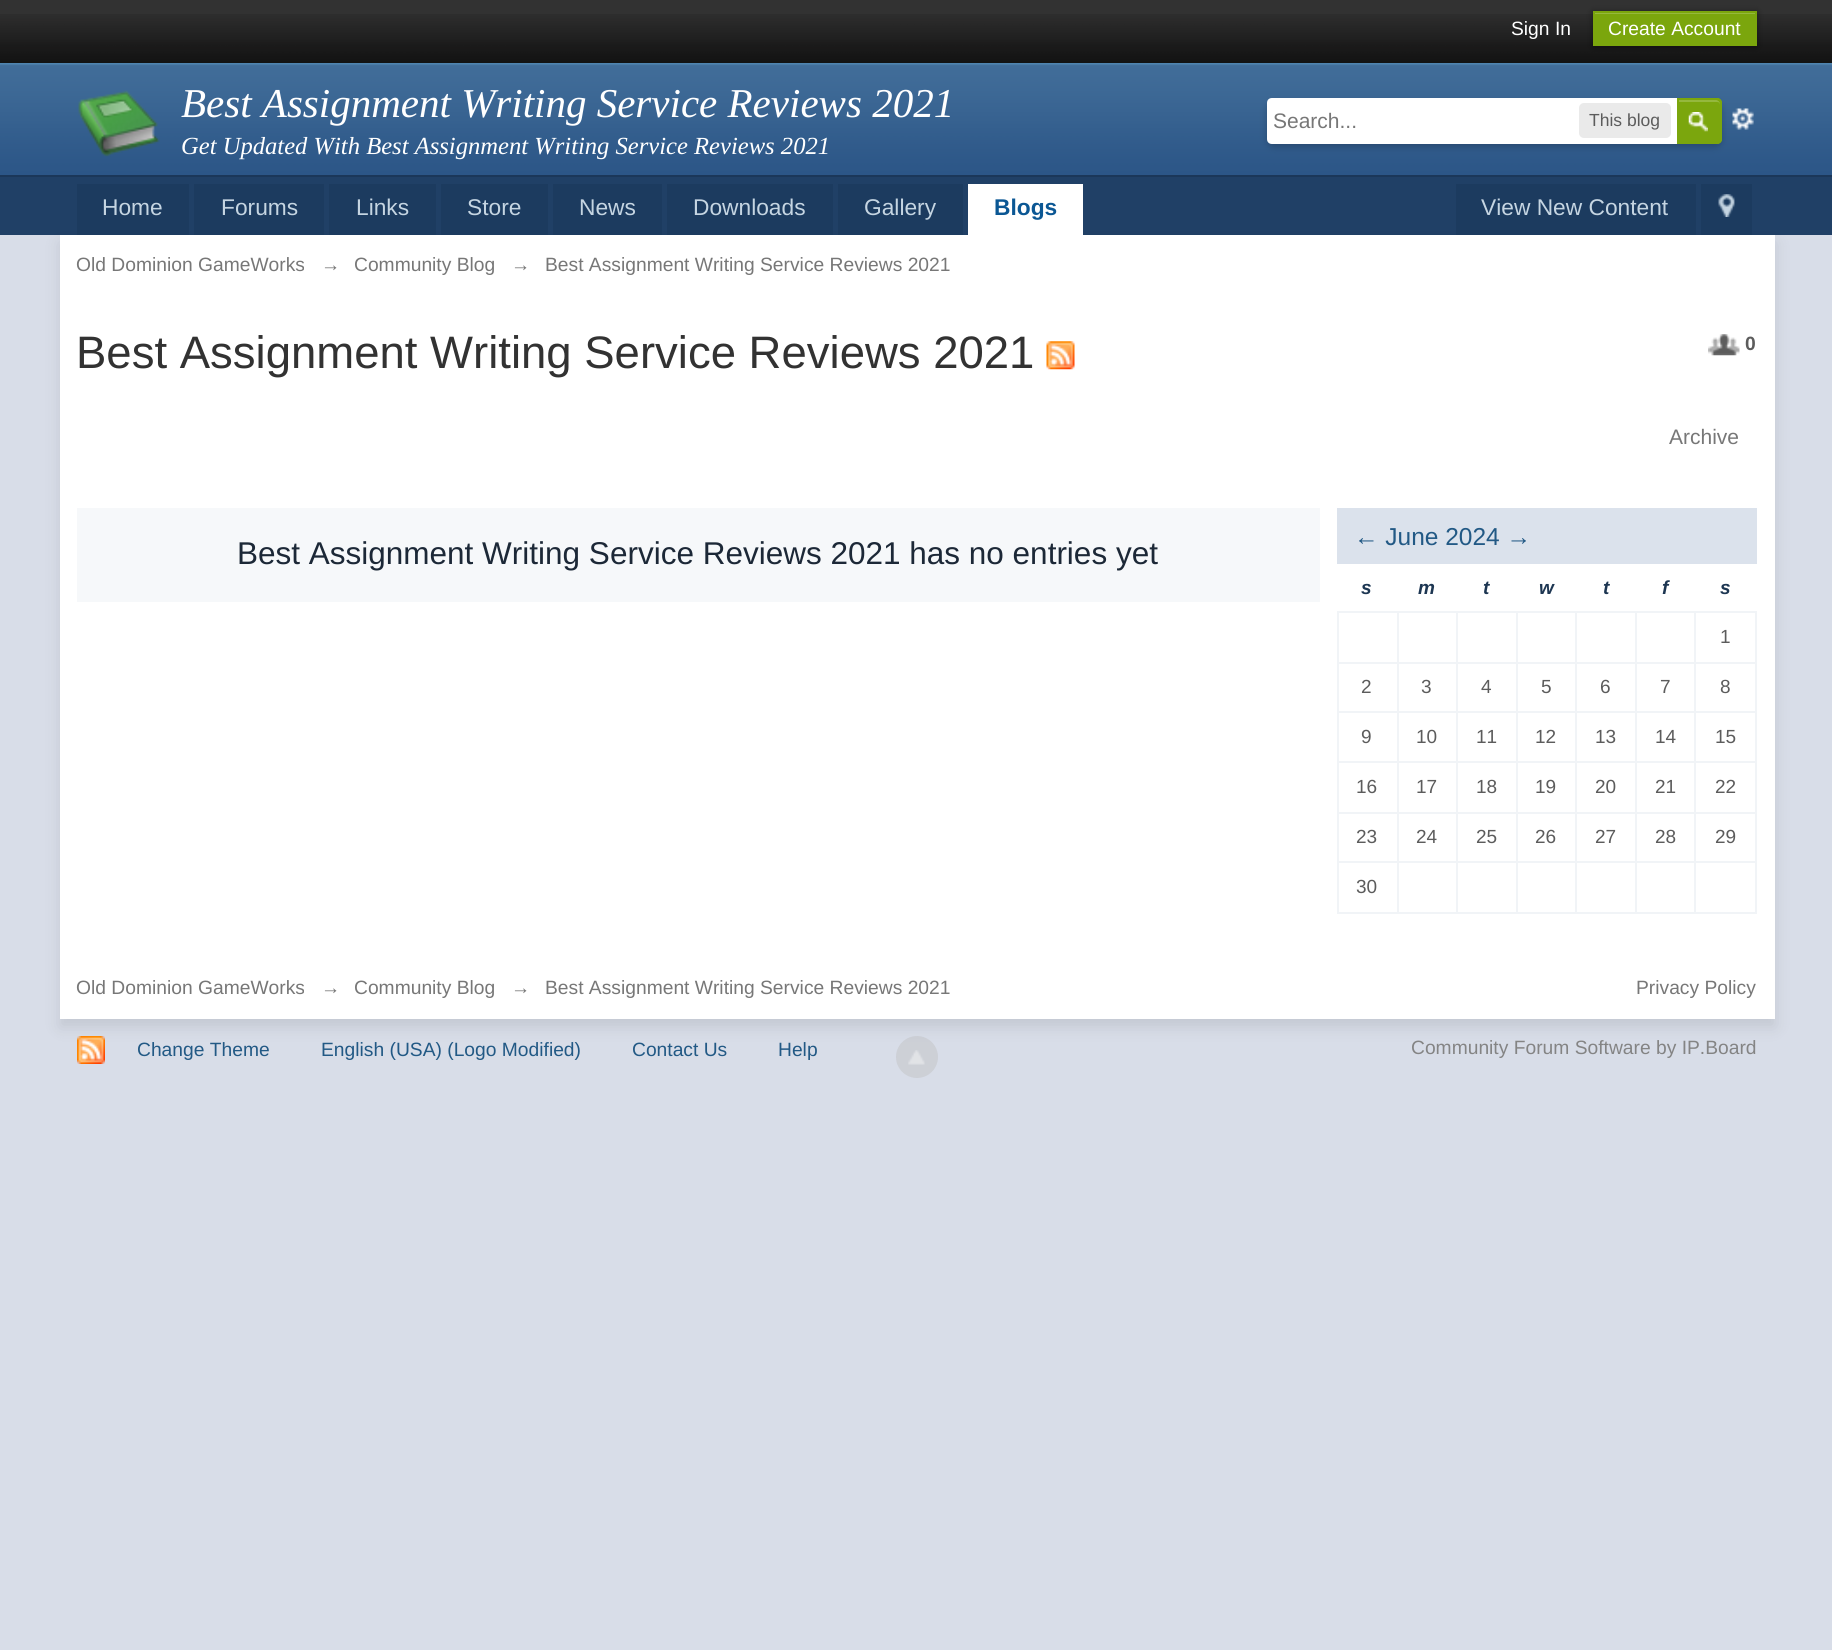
import math
import cairo

surface = cairo.ImageSurface(cairo.FORMAT_RGB24, 1832, 1650)
ctx = cairo.Context(surface)
options = cairo.FontOptions()
options.set_hint_metrics(cairo.HINT_METRICS_OFF)
options.set_hint_style(cairo.HINT_STYLE_NONE)
ctx.set_font_options(options)
ctx.set_miter_limit(4)


def set_color(code):
    ctx.set_source_rgb(*(v / 255 for v in bytes.fromhex(code[-6:])))


def draw_text(x, y, s, family, size, color, bold=False, italic=False):
    ctx.select_font_face(family, cairo.FONT_SLANT_ITALIC if italic else cairo.FONT_SLANT_NORMAL, cairo.FONT_WEIGHT_BOLD if bold else cairo.FONT_WEIGHT_NORMAL)
    ctx.set_font_size(size)
    set_color(color)
    ctx.move_to(x, y)
    ctx.show_text(s)


def fill_rect(x, y, w, h, color):
    set_color(color)
    ctx.rectangle(x, y, w, h)
    ctx.fill()


def rounded_rect(x, y, w, h, r):
    ctx.new_sub_path()
    for i, (u, v) in enumerate([(x + w - r, y + h - r), (x + r, y + h - r), (x + r, y + r), (x + w - r, y + r)]):
        ctx.arc(u, v, r, i * math.pi / 2, (i + 1) * math.pi / 2)
    ctx.close_path()


def draw_shadow(x, y, w, h, r, blur, alpha):
    ctx.push_group_with_content(cairo.CONTENT_ALPHA)
    ctx.set_operator(cairo.OPERATOR_SOURCE)
    for i in range(15, -16, -2):
        e = blur * i / 6
        if min(w, h) + 2 * e > 0:
            ctx.set_source_rgba(0, 0, 0, alpha * math.erfc((i - 1) / 8.5) / 2)
            rounded_rect(x - e, y - e, w + 2 * e, h + 2 * e, max(0, min(r + e + blur * .6, min(w, h) / 2 + e)))
            ctx.fill()
    ctx.mask(ctx.pop_group())


def draw_image(path, x, y, w, h):
    ctx.save()
    ctx.set_source_surface(cairo.ImageSurface.create_from_png(path), x, y)
    ctx.rectangle(x, y, w, h)
    ctx.fill()
    ctx.restore()


set_color("#d8dde8")
ctx.paint()
fill_rect(0, 0, 1832, 14, "#323232")
draw_image("assets/img1.png", 0, 14, 1832, 49)
draw_text(1511, 35, "Sign In", "Liberation Sans", 19.25, "#ffffff")
set_color("#000000")
draw_shadow(1593, 12, 164, 35, 0, 3.5, 0.4)
fill_rect(1595, 14, 160, 30, "#7ba60d")
fill_rect(1594, 13, 161, 1, "#95b83d")
ctx.rectangle(1594, 12, 162, 33)
set_color("#7ba60d")
ctx.stroke()
draw_text(1608, 35, "Create Account", "Liberation Sans", 19.25, "#ffffff")
draw_image("assets/img2.png", 0, 63, 1832, 112)
fill_rect(0, 175, 1832, 2, "#1b3759")
draw_image("assets/img3.png", 78, 90, 82, 67)
draw_text(181, 117, "Best Assignment Writing Service Reviews 2021", "Liberation Serif", 41, "#ffffff", italic=True)
draw_text(181, 154, "Get Updated With Best Assignment Writing Service Reviews 2021", "Liberation Serif", 24.6, "#ffffff", italic=True)
draw_image("assets/img5.png", 1732, 108, 22, 22)
set_color("#000000")
draw_shadow(1267, 102, 455, 45, 7, 3.5, 0.2)
set_color("#ffffff")
ctx.new_path()
ctx.move_to(1272, 98)
ctx.line_to(1715, 98)
ctx.curve_to(1719, 98, 1722, 101, 1722, 105)
ctx.line_to(1722, 137)
ctx.curve_to(1722, 141, 1719, 144, 1715, 144)
ctx.line_to(1272, 144)
ctx.curve_to(1269, 144, 1267, 142, 1267, 139)
ctx.line_to(1267, 103)
ctx.curve_to(1267, 100, 1269, 98, 1272, 98)
ctx.close_path()
ctx.fill()
draw_text(1273, 128, "Search...", "Liberation Sans", 21, "#777777")
set_color("#eaeaea")
rounded_rect(1579, 103, 92, 35, 5)
ctx.fill()
draw_text(1589, 126, "This blog", "Liberation Sans", 17.5, "#5c5c5c")
set_color("#7ba60d")
ctx.new_path()
ctx.move_to(1677, 98)
ctx.line_to(1717, 98)
ctx.curve_to(1720, 98, 1722, 100, 1722, 103)
ctx.line_to(1722, 139)
ctx.curve_to(1722, 142, 1720, 144, 1717, 144)
ctx.line_to(1677, 144)
ctx.close_path()
ctx.fill()
draw_image("assets/img4.png", 1688, 112, 20, 20)
set_color("#95b83d")
ctx.new_path()
ctx.move_to(1678, 102)
ctx.line_to(1717, 102)
ctx.curve_to(1719, 102, 1720, 103, 1720, 105)
ctx.line_to(1720, 104)
ctx.curve_to(1720, 102, 1718, 100, 1716, 100)
ctx.line_to(1678, 100)
ctx.close_path()
ctx.fill()
ctx.new_path()
ctx.move_to(1678, 99)
ctx.line_to(1717, 99)
ctx.curve_to(1719, 99, 1721, 101, 1721, 103)
ctx.line_to(1721, 139)
ctx.curve_to(1721, 141, 1719, 143, 1717, 143)
ctx.line_to(1678, 143)
ctx.close_path()
set_color("#7ba60d")
ctx.stroke()
fill_rect(0, 177, 1832, 58, "#204066")
set_color("#000000")
draw_shadow(60, 243, 1715, 784, 0, 8, 0.1)
fill_rect(77, 184, 112, 51, "#1c3b5f")
draw_text(102, 215, "Home", "Liberation Sans", 22.75, "#c5d5e2")
fill_rect(194, 184, 130, 51, "#1c3b5f")
draw_text(221, 215, "Forums", "Liberation Sans", 22.75, "#c5d5e2")
fill_rect(329, 184, 107, 51, "#1c3b5f")
draw_text(356, 215, "Links", "Liberation Sans", 22.75, "#c5d5e2")
fill_rect(441, 184, 107, 51, "#1c3b5f")
draw_text(467, 215, "Store", "Liberation Sans", 22.75, "#c5d5e2")
fill_rect(553, 184, 109, 51, "#1c3b5f")
draw_text(579, 215, "News", "Liberation Sans", 22.75, "#c5d5e2")
fill_rect(667, 184, 166, 51, "#1c3b5f")
draw_text(693, 215, "Downloads", "Liberation Sans", 22.75, "#c5d5e2")
fill_rect(838, 184, 125, 51, "#1c3b5f")
draw_text(864, 215, "Gallery", "Liberation Sans", 22.75, "#c5d5e2")
fill_rect(968, 184, 115, 51, "#ffffff")
draw_text(994, 215, "Blogs", "Liberation Sans", 22.75, "#0b5794", bold=True)
fill_rect(1456, 184, 240, 51, "#1c3b5f")
draw_text(1481, 215, "View New Content", "Liberation Sans", 22.75, "#c5d5e2")
fill_rect(1701, 184, 51, 51, "#1c3b5f")
draw_image("assets/img6.png", 1718, 194, 17, 23)
fill_rect(60, 235, 1715, 784, "#ffffff")
draw_text(76, 271, "Old Dominion GameWorks", "Liberation Sans", 19.25, "#777777")
draw_text(321, 271, "→", "Liberation Sans", 19.25, "#777777")
draw_text(354, 271, "Community Blog", "Liberation Sans", 19.25, "#777777")
draw_text(511, 271, "→", "Liberation Sans", 19.25, "#777777")
draw_text(545, 271, "Best Assignment Writing Service Reviews 2021", "Liberation Sans", 19.25, "#777777")
draw_text(76, 368, "Best Assignment Writing Service Reviews 2021", "Liberation Sans", 45.5, "#323232")
draw_image("assets/img7.png", 1046, 341, 29, 29)
draw_image("assets/img8.png", 1708, 334, 32, 22)
draw_text(1745, 350, "0", "Liberation Sans", 19.25, "#5c5c5c", bold=True)
draw_text(1669, 444, "Archive", "Liberation Sans", 21, "#777777")
fill_rect(77, 508, 1243, 94, "#f6f8fa")
draw_text(237, 564, "Best Assignment Writing Service Reviews 2021 has no entries yet", "Liberation Sans", 31.5, "#1c2837")
fill_rect(1337, 508, 420, 56, "#dbe2ec")
draw_text(1354, 545, "← June 2024 →", "Liberation Sans", 24.5, "#225985")
draw_text(1361, 594, "s", "Liberation Sans", 19, "#1d3652", bold=True, italic=True)
draw_text(1418, 594, "m", "Liberation Sans", 19, "#1d3652", bold=True, italic=True)
draw_text(1483, 594, "t", "Liberation Sans", 19, "#1d3652", bold=True, italic=True)
draw_text(1539, 594, "w", "Liberation Sans", 19, "#1d3652", bold=True, italic=True)
draw_text(1603, 594, "t", "Liberation Sans", 19, "#1d3652", bold=True, italic=True)
draw_text(1662, 594, "f", "Liberation Sans", 19, "#1d3652", bold=True, italic=True)
draw_text(1720, 594, "s", "Liberation Sans", 19, "#1d3652", bold=True, italic=True)
fill_rect(1694, 611, 63, 2, "#f1f4f7")
fill_rect(1694, 662, 63, 2, "#f1f4f7")
fill_rect(1694, 711, 63, 2, "#f1f4f7")
fill_rect(1694, 761, 63, 2, "#f1f4f7")
fill_rect(1694, 812, 63, 2, "#f1f4f7")
fill_rect(1694, 861, 63, 2, "#f1f4f7")
fill_rect(1755, 861, 2, 53, "#f1f4f7")
fill_rect(1694, 912, 63, 2, "#f1f4f7")
fill_rect(1694, 861, 2, 53, "#f1f4f7")
fill_rect(1635, 861, 61, 2, "#f1f4f7")
fill_rect(1694, 812, 2, 51, "#f1f4f7")
fill_rect(1635, 812, 61, 2, "#f1f4f7")
fill_rect(1694, 761, 2, 53, "#f1f4f7")
fill_rect(1635, 761, 61, 2, "#f1f4f7")
fill_rect(1694, 711, 2, 52, "#f1f4f7")
fill_rect(1635, 711, 61, 2, "#f1f4f7")
fill_rect(1694, 662, 2, 50, "#f1f4f7")
fill_rect(1635, 662, 61, 2, "#f1f4f7")
fill_rect(1694, 611, 2, 52, "#f1f4f7")
fill_rect(1635, 611, 61, 2, "#f1f4f7")
fill_rect(1635, 912, 61, 2, "#f1f4f7")
fill_rect(1635, 861, 2, 53, "#f1f4f7")
fill_rect(1575, 861, 61, 2, "#f1f4f7")
fill_rect(1635, 812, 2, 51, "#f1f4f7")
fill_rect(1575, 812, 61, 2, "#f1f4f7")
fill_rect(1635, 761, 2, 53, "#f1f4f7")
fill_rect(1575, 761, 61, 2, "#f1f4f7")
fill_rect(1635, 711, 2, 52, "#f1f4f7")
fill_rect(1575, 711, 61, 2, "#f1f4f7")
fill_rect(1635, 662, 2, 50, "#f1f4f7")
fill_rect(1575, 662, 61, 2, "#f1f4f7")
fill_rect(1635, 611, 2, 52, "#f1f4f7")
fill_rect(1575, 611, 61, 2, "#f1f4f7")
fill_rect(1575, 912, 61, 2, "#f1f4f7")
fill_rect(1575, 861, 2, 53, "#f1f4f7")
fill_rect(1516, 861, 61, 2, "#f1f4f7")
fill_rect(1575, 812, 2, 51, "#f1f4f7")
fill_rect(1516, 812, 61, 2, "#f1f4f7")
fill_rect(1575, 761, 2, 53, "#f1f4f7")
fill_rect(1516, 761, 61, 2, "#f1f4f7")
fill_rect(1575, 711, 2, 52, "#f1f4f7")
fill_rect(1516, 711, 61, 2, "#f1f4f7")
fill_rect(1575, 662, 2, 50, "#f1f4f7")
fill_rect(1516, 662, 61, 2, "#f1f4f7")
fill_rect(1575, 611, 2, 52, "#f1f4f7")
fill_rect(1516, 611, 61, 2, "#f1f4f7")
fill_rect(1516, 912, 61, 2, "#f1f4f7")
fill_rect(1516, 861, 2, 53, "#f1f4f7")
fill_rect(1456, 861, 61, 2, "#f1f4f7")
fill_rect(1516, 812, 2, 51, "#f1f4f7")
fill_rect(1456, 812, 61, 2, "#f1f4f7")
fill_rect(1516, 761, 2, 53, "#f1f4f7")
fill_rect(1456, 761, 61, 2, "#f1f4f7")
fill_rect(1516, 711, 2, 52, "#f1f4f7")
fill_rect(1456, 711, 61, 2, "#f1f4f7")
fill_rect(1516, 662, 2, 50, "#f1f4f7")
fill_rect(1456, 662, 61, 2, "#f1f4f7")
fill_rect(1516, 611, 2, 52, "#f1f4f7")
fill_rect(1456, 611, 61, 2, "#f1f4f7")
fill_rect(1456, 912, 61, 2, "#f1f4f7")
fill_rect(1456, 861, 2, 53, "#f1f4f7")
fill_rect(1397, 861, 61, 2, "#f1f4f7")
fill_rect(1456, 812, 2, 51, "#f1f4f7")
fill_rect(1397, 812, 61, 2, "#f1f4f7")
fill_rect(1456, 761, 2, 53, "#f1f4f7")
fill_rect(1397, 761, 61, 2, "#f1f4f7")
fill_rect(1456, 711, 2, 52, "#f1f4f7")
fill_rect(1397, 711, 61, 2, "#f1f4f7")
fill_rect(1456, 662, 2, 50, "#f1f4f7")
fill_rect(1397, 662, 61, 2, "#f1f4f7")
fill_rect(1456, 611, 2, 52, "#f1f4f7")
fill_rect(1397, 611, 61, 2, "#f1f4f7")
fill_rect(1397, 912, 61, 2, "#f1f4f7")
fill_rect(1397, 861, 2, 53, "#f1f4f7")
fill_rect(1337, 861, 61, 2, "#f1f4f7")
fill_rect(1397, 812, 2, 51, "#f1f4f7")
fill_rect(1337, 812, 61, 2, "#f1f4f7")
fill_rect(1397, 761, 2, 53, "#f1f4f7")
fill_rect(1337, 761, 61, 2, "#f1f4f7")
fill_rect(1397, 711, 2, 52, "#f1f4f7")
fill_rect(1337, 711, 61, 2, "#f1f4f7")
fill_rect(1397, 662, 2, 50, "#f1f4f7")
fill_rect(1337, 662, 61, 2, "#f1f4f7")
fill_rect(1397, 611, 2, 52, "#f1f4f7")
fill_rect(1337, 611, 61, 2, "#f1f4f7")
fill_rect(1337, 912, 61, 2, "#f1f4f7")
fill_rect(1337, 861, 2, 53, "#f1f4f7")
fill_rect(1337, 812, 2, 51, "#f1f4f7")
fill_rect(1337, 761, 2, 53, "#f1f4f7")
fill_rect(1337, 711, 2, 52, "#f1f4f7")
fill_rect(1337, 662, 2, 50, "#f1f4f7")
fill_rect(1337, 611, 2, 52, "#f1f4f7")
fill_rect(1755, 812, 2, 51, "#f1f4f7")
fill_rect(1755, 761, 2, 53, "#f1f4f7")
fill_rect(1755, 711, 2, 52, "#f1f4f7")
fill_rect(1755, 662, 2, 50, "#f1f4f7")
fill_rect(1755, 611, 2, 52, "#f1f4f7")
draw_text(1720, 643, "1", "Liberation Sans", 19, "#5c5c5c")
draw_text(1361, 693, "2", "Liberation Sans", 19, "#5c5c5c")
draw_text(1421, 693, "3", "Liberation Sans", 19, "#5c5c5c")
draw_text(1481, 693, "4", "Liberation Sans", 19, "#5c5c5c")
draw_text(1541, 693, "5", "Liberation Sans", 19, "#5c5c5c")
draw_text(1600, 693, "6", "Liberation Sans", 19, "#5c5c5c")
draw_text(1660, 693, "7", "Liberation Sans", 19, "#5c5c5c")
draw_text(1720, 693, "8", "Liberation Sans", 19, "#5c5c5c")
draw_text(1361, 743, "9", "Liberation Sans", 19, "#5c5c5c")
draw_text(1416, 743, "10", "Liberation Sans", 19, "#5c5c5c")
draw_text(1476, 743, "11", "Liberation Sans", 19, "#5c5c5c")
draw_text(1535, 743, "12", "Liberation Sans", 19, "#5c5c5c")
draw_text(1595, 743, "13", "Liberation Sans", 19, "#5c5c5c")
draw_text(1655, 743, "14", "Liberation Sans", 19, "#5c5c5c")
draw_text(1715, 743, "15", "Liberation Sans", 19, "#5c5c5c")
draw_text(1356, 793, "16", "Liberation Sans", 19, "#5c5c5c")
draw_text(1416, 793, "17", "Liberation Sans", 19, "#5c5c5c")
draw_text(1476, 793, "18", "Liberation Sans", 19, "#5c5c5c")
draw_text(1535, 793, "19", "Liberation Sans", 19, "#5c5c5c")
draw_text(1595, 793, "20", "Liberation Sans", 19, "#5c5c5c")
draw_text(1655, 793, "21", "Liberation Sans", 19, "#5c5c5c")
draw_text(1715, 793, "22", "Liberation Sans", 19, "#5c5c5c")
draw_text(1356, 843, "23", "Liberation Sans", 19, "#5c5c5c")
draw_text(1416, 843, "24", "Liberation Sans", 19, "#5c5c5c")
draw_text(1476, 843, "25", "Liberation Sans", 19, "#5c5c5c")
draw_text(1535, 843, "26", "Liberation Sans", 19, "#5c5c5c")
draw_text(1595, 843, "27", "Liberation Sans", 19, "#5c5c5c")
draw_text(1655, 843, "28", "Liberation Sans", 19, "#5c5c5c")
draw_text(1715, 843, "29", "Liberation Sans", 19, "#5c5c5c")
draw_text(1356, 893, "30", "Liberation Sans", 19, "#5c5c5c")
draw_text(76, 994, "Old Dominion GameWorks", "Liberation Sans", 19.25, "#777777")
draw_text(321, 994, "→", "Liberation Sans", 19.25, "#777777")
draw_text(354, 994, "Community Blog", "Liberation Sans", 19.25, "#777777")
draw_text(511, 994, "→", "Liberation Sans", 19.25, "#777777")
draw_text(545, 994, "Best Assignment Writing Service Reviews 2021", "Liberation Sans", 19.25, "#777777")
draw_text(1636, 994, "Privacy Policy", "Liberation Sans", 19.25, "#777777")
draw_image("assets/img9.png", 77, 1036, 28, 28)
draw_text(137, 1056, "Change Theme", "Liberation Sans", 19.25, "#225985")
draw_text(321, 1056, "English (USA) (Logo Modified)", "Liberation Sans", 19.25, "#225985")
draw_text(632, 1056, "Contact Us", "Liberation Sans", 19.25, "#225985")
draw_text(778, 1056, "Help", "Liberation Sans", 19.25, "#225985")
ctx.set_source_rgba(0.741, 0.741, 0.741, 0.4)
ctx.new_path()
ctx.arc(917, 1057, 21, 0, 2 * math.pi)
ctx.fill()
draw_image("assets/img10.png", 908, 1050, 17, 15)
draw_text(1411, 1054, "Community Forum Software by IP.Board", "Liberation Sans", 19.25, "#848484")
surface.write_to_png("output.png")
